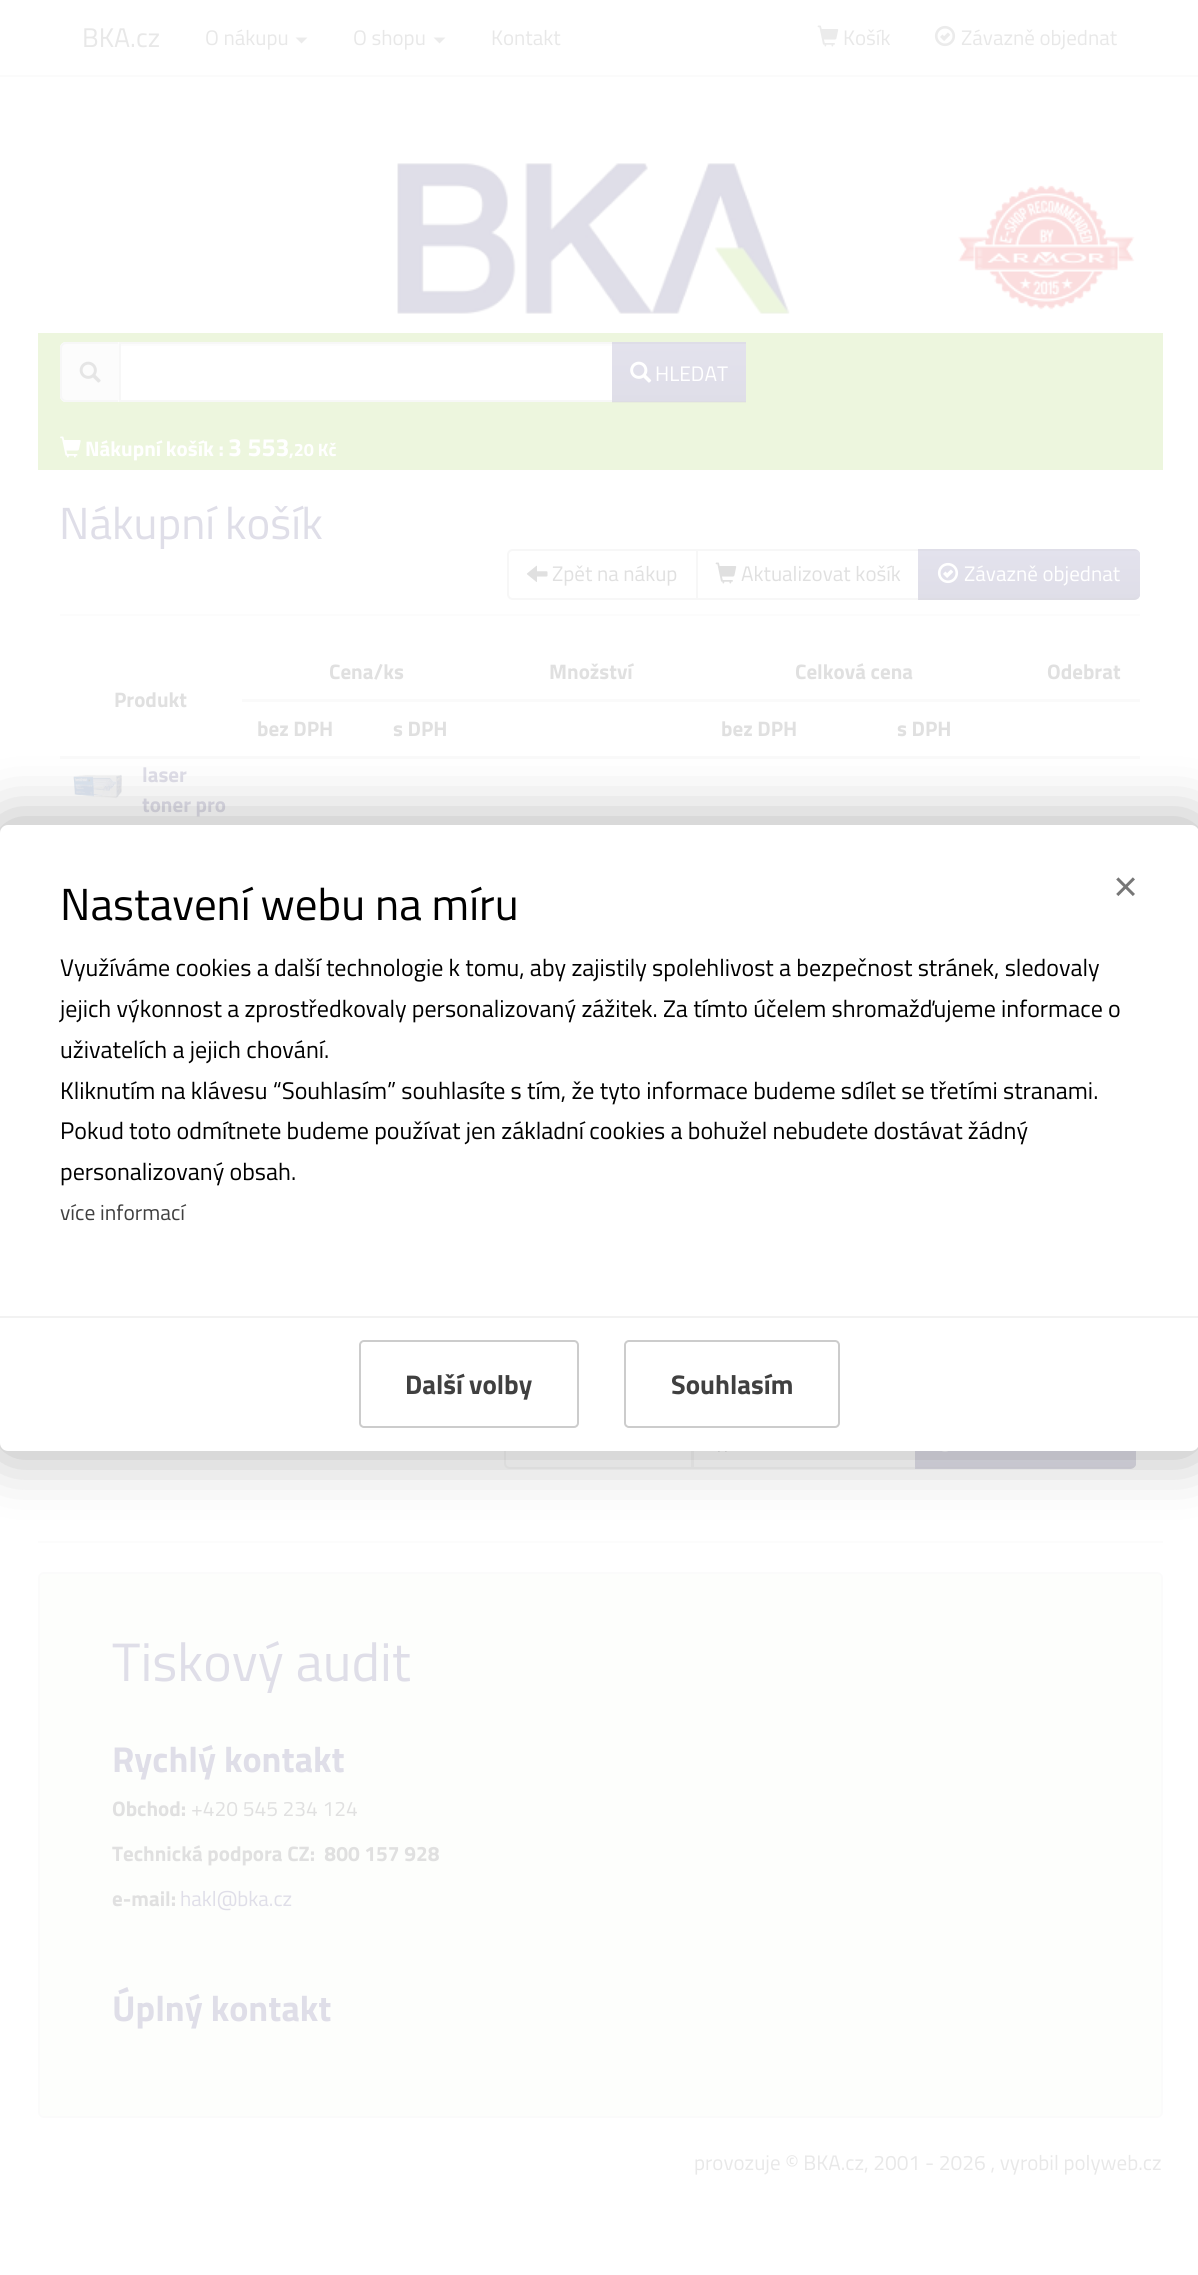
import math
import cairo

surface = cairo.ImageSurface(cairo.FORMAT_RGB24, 1198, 2275)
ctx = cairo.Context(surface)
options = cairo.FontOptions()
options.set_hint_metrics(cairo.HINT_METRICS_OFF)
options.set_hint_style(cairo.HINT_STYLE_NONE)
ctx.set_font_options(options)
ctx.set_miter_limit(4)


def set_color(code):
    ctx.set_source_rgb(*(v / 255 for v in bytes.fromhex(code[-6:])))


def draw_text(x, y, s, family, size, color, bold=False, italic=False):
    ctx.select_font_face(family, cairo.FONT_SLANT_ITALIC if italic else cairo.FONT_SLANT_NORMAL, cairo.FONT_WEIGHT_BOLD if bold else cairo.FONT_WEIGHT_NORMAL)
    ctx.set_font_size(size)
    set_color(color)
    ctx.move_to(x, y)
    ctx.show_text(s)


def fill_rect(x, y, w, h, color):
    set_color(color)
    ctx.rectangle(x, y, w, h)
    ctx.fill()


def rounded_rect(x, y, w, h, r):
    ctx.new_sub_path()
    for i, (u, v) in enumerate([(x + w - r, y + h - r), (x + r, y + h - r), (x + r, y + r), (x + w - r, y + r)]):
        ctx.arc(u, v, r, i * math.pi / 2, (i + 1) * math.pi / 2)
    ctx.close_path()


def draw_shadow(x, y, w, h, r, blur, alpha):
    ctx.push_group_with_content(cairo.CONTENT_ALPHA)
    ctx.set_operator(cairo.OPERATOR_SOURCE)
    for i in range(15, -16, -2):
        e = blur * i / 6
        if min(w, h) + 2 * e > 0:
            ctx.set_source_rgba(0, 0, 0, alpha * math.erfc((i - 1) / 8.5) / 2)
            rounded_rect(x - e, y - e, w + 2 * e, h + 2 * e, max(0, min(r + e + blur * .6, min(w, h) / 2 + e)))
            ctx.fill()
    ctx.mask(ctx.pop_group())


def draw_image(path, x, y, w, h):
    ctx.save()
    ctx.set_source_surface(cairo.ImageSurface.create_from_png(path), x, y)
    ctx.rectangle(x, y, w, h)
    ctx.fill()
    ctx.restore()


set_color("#ffffff")
ctx.paint()
fill_rect(0, 75, 1198, 2, "#fbfbfb")
draw_text(82, 47, "BKA.cz", "Titillium Web", 27, "#e8e8e8")
draw_text(205, 45, "O nákupu", "Titillium Web", 21, "#e8e8e8")
set_color("#ebebeb")
ctx.new_path()
ctx.move_to(295.5, 37.5)
ctx.line_to(307.5, 37.5)
ctx.line_to(301.5, 43.5)
ctx.close_path()
ctx.fill()
draw_text(353, 45, "O shopu", "Titillium Web", 21, "#e8e8e8")
set_color("#ebebeb")
ctx.new_path()
ctx.move_to(433.5, 37.5)
ctx.line_to(445.5, 37.5)
ctx.line_to(439.5, 43.5)
ctx.close_path()
ctx.fill()
draw_text(491, 45, "Kontakt", "Titillium Web", 21, "#e8e8e8")
draw_image("assets/img1.png", 817, 25, 22, 22)
draw_text(843, 45, "Košík", "Titillium Web", 21, "#e8e8e8")
draw_image("assets/img2.png", 934, 25, 22, 22)
draw_text(961, 45, "Závazně objednat", "Titillium Web", 21, "#e8e8e8")
draw_image("assets/img3.png", 397, 163, 393, 151)
draw_image("assets/img4.png", 958, 185, 177, 125)
fill_rect(38, 333, 1125, 137, "#edf6de")
set_color("#fcfcfc")
ctx.new_path()
ctx.move_to(66, 342)
ctx.line_to(119, 342)
ctx.line_to(119, 402)
ctx.line_to(66, 402)
ctx.curve_to(62.5, 402, 60, 399.5, 60, 396)
ctx.line_to(60, 348)
ctx.curve_to(60, 344.5, 62.5, 342, 66, 342)
ctx.close_path()
ctx.fill()
set_color("#f7f7f7")
ctx.set_fill_rule(cairo.FILL_RULE_EVEN_ODD)
ctx.new_path()
ctx.move_to(66, 342)
ctx.line_to(118, 342)
ctx.line_to(118, 402)
ctx.line_to(66, 402)
ctx.curve_to(63, 402, 60, 399, 60, 396)
ctx.line_to(60, 348)
ctx.curve_to(60, 345, 63, 342, 66, 342)
ctx.close_path()
ctx.move_to(66, 344)
ctx.line_to(118, 344)
ctx.line_to(118, 400)
ctx.line_to(66, 400)
ctx.curve_to(64, 400, 62, 398, 62, 396)
ctx.line_to(62, 348)
ctx.curve_to(62, 346, 64, 344, 66, 344)
ctx.close_path()
ctx.fill()
draw_image("assets/img5.png", 79, 361, 22, 22)
fill_rect(121, 346, 491, 54, "#ffffff")
fill_rect(120, 344, 492, 2, "#fcfcfc")
ctx.rectangle(120, 343, 493, 58)
set_color("#f7f7f7")
ctx.stroke()
fill_rect(612, 401, 134, 1, "#dfdee8")
gradient = cairo.LinearGradient(679, 344, 679, 401)
gradient.add_color_stop_rgba(0, 0.89, 0.886, 0.929, 1)
gradient.add_color_stop_rgba(1, 0.875, 0.871, 0.91, 1)
ctx.set_source(gradient)
ctx.rectangle(612, 344, 134, 57)
ctx.fill()
fill_rect(612, 342, 134, 2, "#dedde7")
ctx.set_source_rgba(0.851, 0.851, 0.851, 0.25)
ctx.rectangle(612, 401, 134, 2)
ctx.fill()
draw_image("assets/img6.png", 630, 361, 22, 22)
draw_text(655, 381, "HLEDAT", "Titillium Web", 21, "#ffffff")
draw_image("assets/img7.png", 60, 436, 21, 22)
draw_text(85, 456, "Nákupní košík :", "Titillium Web", 21, "#ffffff", bold=True)
draw_text(228, 456, "3 553", "Titillium Web", 25, "#ffffff", bold=True)
draw_text(289, 456, ",20 Kč", "Titillium Web", 18, "#ffffff", bold=True)
draw_text(59, 539, "Nákupní košík", "Titillium Web", 45, "#dfdee8")
fill_rect(60, 614, 1080, 2, "#fcfcfc")
ctx.new_path()
ctx.move_to(513, 550)
ctx.line_to(697, 550)
ctx.line_to(697, 599)
ctx.line_to(513, 599)
ctx.curve_to(510, 599, 508, 597, 508, 594)
ctx.line_to(508, 555)
ctx.curve_to(508, 552, 510, 550, 513, 550)
ctx.close_path()
set_color("#f7f7f7")
ctx.stroke()
draw_image("assets/img8.png", 526, 565, 22, 17)
draw_text(552, 581, "Zpět na nákup", "Titillium Web", 21, "#e0e0e0")
ctx.rectangle(697, 550, 222, 49)
set_color("#f7f7f7")
ctx.stroke()
draw_image("assets/img9.png", 715, 562, 22, 22)
draw_text(741, 581, "Aktualizovat košík", "Titillium Web", 21, "#e0e0e0")
set_color("#dfdee8")
ctx.new_path()
ctx.move_to(918, 549)
ctx.line_to(1134, 549)
ctx.curve_to(1137.5, 549, 1140, 551.5, 1140, 555)
ctx.line_to(1140, 594)
ctx.curve_to(1140, 597.5, 1137.5, 600, 1134, 600)
ctx.line_to(918, 600)
ctx.close_path()
ctx.fill()
ctx.save()
ctx.set_fill_rule(cairo.FILL_RULE_WINDING)
ctx.new_path()
ctx.move_to(918, 549)
ctx.line_to(1134, 549)
ctx.curve_to(1137.5, 549, 1140, 551.5, 1140, 555)
ctx.line_to(1140, 594)
ctx.curve_to(1140, 597.5, 1137.5, 600, 1134, 600)
ctx.line_to(918, 600)
ctx.close_path()
ctx.clip()
gradient = cairo.LinearGradient(1029, 551, 1029, 599)
gradient.add_color_stop_rgba(0, 0.89, 0.886, 0.929, 1)
gradient.add_color_stop_rgba(1, 0.875, 0.871, 0.91, 1)
ctx.set_source(gradient)
ctx.rectangle(918, 551, 222, 48)
ctx.fill()
ctx.restore()
ctx.set_source_rgba(0.851, 0.851, 0.851, 0.25)
ctx.set_fill_rule(cairo.FILL_RULE_WINDING)
ctx.new_path()
ctx.move_to(1134, 600)
ctx.curve_to(1136, 600, 1137, 599, 1138, 598)
ctx.line_to(1137, 597)
ctx.curve_to(1136, 598, 1135, 598, 1134, 598)
ctx.line_to(920, 598)
ctx.line_to(918, 600)
ctx.close_path()
ctx.fill()
draw_image("assets/img10.png", 937, 562, 22, 22)
draw_text(964, 581, "Závazně objednat", "Titillium Web", 21, "#ffffff")
draw_text(329, 679, "Cena/ks", "Titillium Web", 21, "#e0e0e0", bold=True)
draw_text(549, 679, "Množství", "Titillium Web", 21, "#e0e0e0", bold=True)
draw_text(795, 679, "Celková cena", "Titillium Web", 21, "#e0e0e0", bold=True)
fill_rect(242, 699, 898, 3, "#fafafa")
draw_text(1047, 679, "Odebrat", "Titillium Web", 21, "#e0e0e0", bold=True)
draw_text(114, 707, "Produkt", "Titillium Web", 21, "#e0e0e0", bold=True)
draw_text(257, 736, "bez DPH", "Titillium Web", 21, "#e0e0e0", bold=True)
draw_text(393, 736, "s DPH", "Titillium Web", 21, "#e0e0e0", bold=True)
draw_text(721, 736, "bez DPH", "Titillium Web", 21, "#e0e0e0", bold=True)
draw_text(897, 736, "s DPH", "Titillium Web", 21, "#e0e0e0", bold=True)
fill_rect(60, 756, 1080, 3, "#fafafa")
draw_image("assets/img11.png", 68, 761, 59, 50)
draw_text(142, 782, "laser", "Titillium Web", 21, "#dfdee8", bold=True)
draw_text(142, 812, "toner pro", "Titillium Web", 21, "#dfdee8", bold=True)
ctx.new_path()
ctx.move_to(510, 1419)
ctx.line_to(692, 1419)
ctx.line_to(692, 1468)
ctx.line_to(510, 1468)
ctx.curve_to(507, 1468, 505, 1466, 505, 1463)
ctx.line_to(505, 1424)
ctx.curve_to(505, 1421, 507, 1419, 510, 1419)
ctx.close_path()
set_color("#f7f7f7")
ctx.stroke()
ctx.rectangle(693, 1419, 223, 49)
ctx.stroke()
draw_image("assets/img12.png", 718, 1451, 9, 1)
set_color("#dfdee8")
ctx.new_path()
ctx.move_to(915, 1418)
ctx.line_to(1130, 1418)
ctx.curve_to(1133.5, 1418, 1136, 1420.5, 1136, 1424)
ctx.line_to(1136, 1463)
ctx.curve_to(1136, 1466.5, 1133.5, 1469, 1130, 1469)
ctx.line_to(915, 1469)
ctx.close_path()
ctx.fill()
ctx.save()
ctx.new_path()
ctx.move_to(915, 1418)
ctx.line_to(1130, 1418)
ctx.curve_to(1133.5, 1418, 1136, 1420.5, 1136, 1424)
ctx.line_to(1136, 1463)
ctx.curve_to(1136, 1466.5, 1133.5, 1469, 1130, 1469)
ctx.line_to(915, 1469)
ctx.close_path()
ctx.clip()
gradient = cairo.LinearGradient(1025, 1419, 1025, 1467)
gradient.add_color_stop_rgba(0, 0.89, 0.886, 0.929, 1)
gradient.add_color_stop_rgba(1, 0.875, 0.871, 0.91, 1)
ctx.set_source(gradient)
ctx.rectangle(915, 1451, 221, 16)
ctx.fill()
ctx.restore()
ctx.set_source_rgba(0.851, 0.851, 0.851, 0.25)
ctx.new_path()
ctx.move_to(1134, 1467)
ctx.curve_to(1133, 1468, 1131, 1468, 1130, 1468)
ctx.line_to(916, 1468)
ctx.line_to(916, 1467)
ctx.line_to(1130, 1467)
ctx.line_to(1133, 1466)
ctx.close_path()
ctx.fill()
draw_image("assets/img13.png", 942, 1451, 6, 1)
fill_rect(38, 1541, 1125, 2, "#fcfcfc")
set_color("#fdfefc")
rounded_rect(39, 1573, 1123, 544, 5)
ctx.fill_preserve()
set_color("#fbfbfb")
ctx.stroke()
draw_text(112, 1681, "Tiskový audit", "Titillium Web", 54, "#dfdee8")
draw_text(112, 1772, "Rychlý kontakt", "Titillium Web", 36, "#dfdee8", bold=True)
draw_text(112, 1816, "Obchod:", "Titillium Web", 21, "#e0e0e0", bold=True)
draw_text(191, 1816, "+420 545 234 124", "Titillium Web", 21, "#e0e0e0")
draw_text(112, 1861, "Technická podpora CZ:  800 157 928", "Titillium Web", 21, "#e0e0e0", bold=True)
draw_text(112, 1906, "e-mail:", "Titillium Web", 21, "#e0e0e0", bold=True)
draw_text(180, 1906, "hakl@bka.cz", "Titillium Web", 21, "#dfdee8")
draw_text(112, 2021, "Úplný kontakt", "Titillium Web", 36, "#dfdee8", bold=True)
draw_text(694, 2170, "provozuje © BKA.cz, 2001 - 2026 , vyrobil polyweb.cz", "Titillium Web", 21, "#e8e8e8")
set_color("#000000")
draw_shadow(-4, 821, 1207, 634, 12, 30, 0.3)
set_color("#ffffff")
rounded_rect(0, 825, 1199, 626, 8)
ctx.fill()
draw_text(60, 920, "Nastavení webu na míru", "Titillium Web", 45, "#000000")
draw_text(1113, 898, "×", "Titillium Web", 45, "#777777")
draw_text(60, 976, "Využíváme cookies a další technologie k tomu, aby zajistily spolehlivost a bezpečnost stránek, sledovaly", "Titillium Web", 24, "#000000")
draw_text(60, 1017, "jejich výkonnost a zprostředkovaly personalizovaný zážitek. Za tímto účelem shromažďujeme informace o", "Titillium Web", 24, "#000000")
draw_text(60, 1058, "uživatelích a jejich chování.", "Titillium Web", 24, "#000000")
draw_text(60, 1099, "Kliknutím na klávesu “Souhlasím” souhlasíte s tím, že tyto informace budeme sdílet se třetími stranami.", "Titillium Web", 24, "#000000")
draw_text(60, 1139, "Pokud toto odmítnete budeme používat jen základní cookies a bohužel nebudete dostávat žádný", "Titillium Web", 24, "#000000")
draw_text(60, 1180, "personalizovaný obsah.", "Titillium Web", 24, "#000000")
draw_text(60, 1220, "více informací", "Titillium Web", 21.5, "#404040")
fill_rect(0, 1316, 1198, 2, "#f2f2f2")
rounded_rect(360, 1341, 218, 86, 4)
set_color("#cccccc")
ctx.stroke()
draw_text(405, 1394, "Další volby", "Titillium Web", 27, "#404040", bold=True)
rounded_rect(625, 1341, 214, 86, 4)
set_color("#cccccc")
ctx.stroke()
draw_text(671, 1394, "Souhlasím", "Titillium Web", 27, "#404040", bold=True)
surface.write_to_png("output.png")
